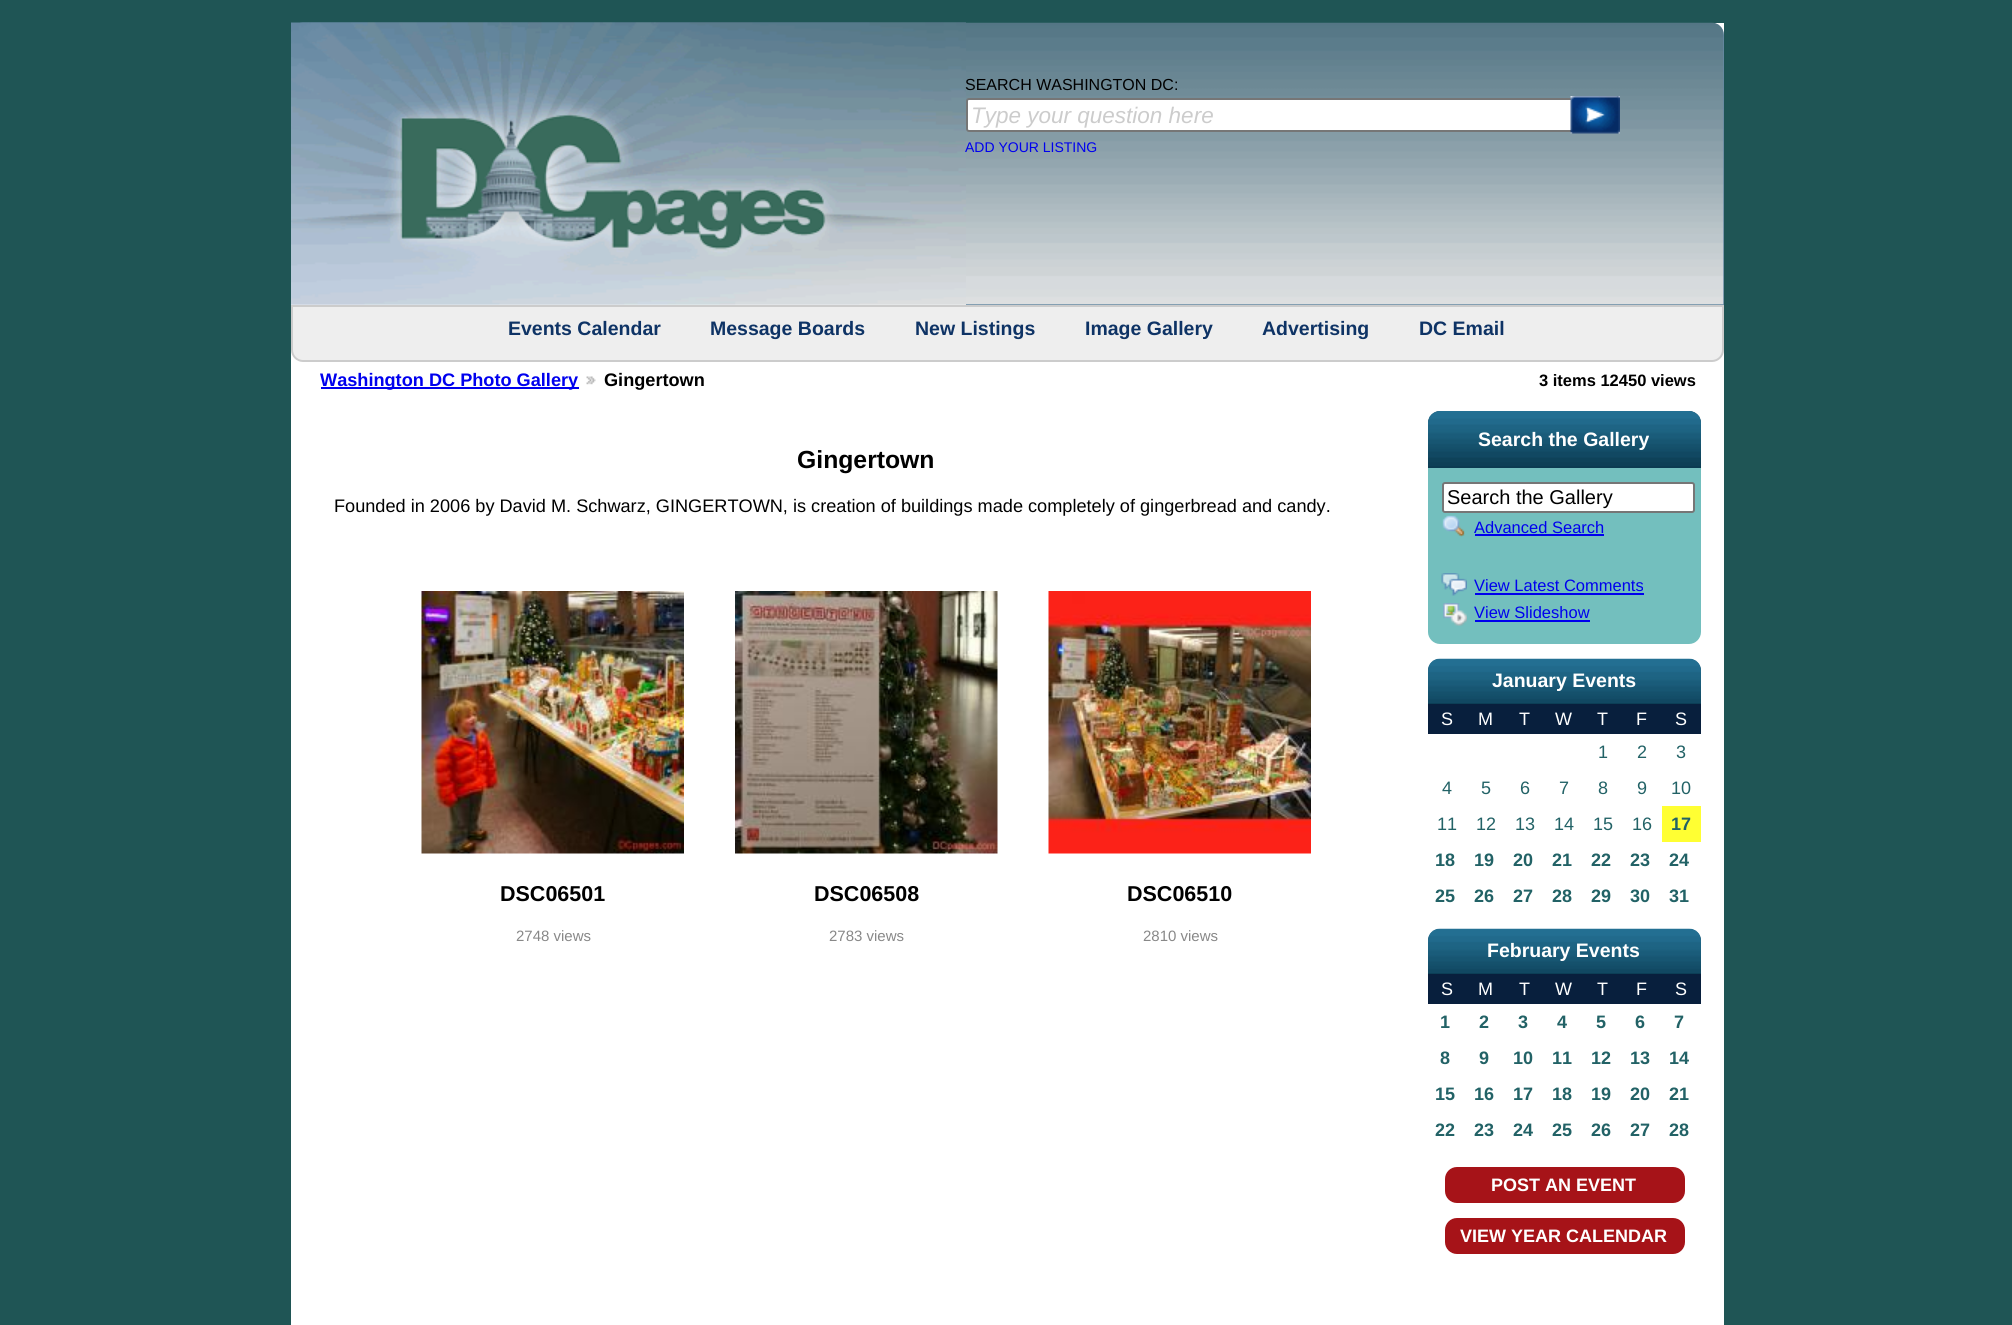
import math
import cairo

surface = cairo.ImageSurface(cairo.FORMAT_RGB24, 2012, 1325)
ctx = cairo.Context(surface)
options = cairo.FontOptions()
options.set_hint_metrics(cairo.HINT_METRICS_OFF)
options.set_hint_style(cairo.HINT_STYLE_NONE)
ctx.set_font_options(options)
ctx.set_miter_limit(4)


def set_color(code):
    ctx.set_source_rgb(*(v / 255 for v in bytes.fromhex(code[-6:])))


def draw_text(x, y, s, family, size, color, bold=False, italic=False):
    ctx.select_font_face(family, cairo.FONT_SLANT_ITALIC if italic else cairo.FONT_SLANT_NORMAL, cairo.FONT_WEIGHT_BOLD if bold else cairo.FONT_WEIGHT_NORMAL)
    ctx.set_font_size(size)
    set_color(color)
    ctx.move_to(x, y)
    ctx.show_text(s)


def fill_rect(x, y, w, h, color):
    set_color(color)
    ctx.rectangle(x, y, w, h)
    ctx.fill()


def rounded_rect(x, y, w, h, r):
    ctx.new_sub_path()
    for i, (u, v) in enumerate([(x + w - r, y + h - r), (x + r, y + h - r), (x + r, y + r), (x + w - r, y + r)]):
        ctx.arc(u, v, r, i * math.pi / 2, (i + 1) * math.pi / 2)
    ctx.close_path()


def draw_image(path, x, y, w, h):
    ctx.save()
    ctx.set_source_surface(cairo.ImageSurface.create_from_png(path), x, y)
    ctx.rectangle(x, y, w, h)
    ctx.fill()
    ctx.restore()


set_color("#1f5555")
ctx.paint()
fill_rect(291, 23, 1433, 1302, "#ffffff")
draw_image("assets/img1.png", 291, 22, 675, 283)
draw_image("assets/img2.png", 291, 22, 675, 283)
set_color("#678aa3")
ctx.new_path()
ctx.move_to(966, 23)
ctx.line_to(1712, 23)
ctx.curve_to(1718.5, 23, 1724, 28.5, 1724, 35)
ctx.line_to(1724, 305)
ctx.line_to(966, 305)
ctx.close_path()
ctx.fill()
draw_image("assets/img3.png", 966, 22, 758, 283)
draw_text(965, 90, "SEARCH WASHINGTON DC:", "Liberation Sans", 16, "#000000")
set_color("#ffffff")
rounded_rect(967, 99, 610, 32, 2)
ctx.fill_preserve()
set_color("#767676")
ctx.stroke()
draw_text(971, 123, "Type your question here", "Liberation Sans", 22.5, "#cccccc", italic=True)
draw_image("assets/img4.png", 1570, 96, 50, 38)
draw_text(965, 152, "ADD YOUR LISTING", "Liberation Sans", 14, "#0000ee")
set_color("#eeeeee")
ctx.new_path()
ctx.move_to(292, 306)
ctx.line_to(1723, 306)
ctx.line_to(1723, 350)
ctx.curve_to(1723, 356, 1718, 361, 1712, 361)
ctx.line_to(303, 361)
ctx.curve_to(297, 361, 292, 356, 292, 350)
ctx.close_path()
ctx.fill_preserve()
set_color("#cccccc")
ctx.stroke()
draw_text(508, 335, "Events Calendar", "Liberation Sans", 19.5, "#0e3365", bold=True)
draw_text(710, 335, "Message Boards", "Liberation Sans", 19.5, "#0e3365", bold=True)
draw_text(915, 335, "New Listings", "Liberation Sans", 19.5, "#0e3365", bold=True)
draw_text(1085, 335, "Image Gallery", "Liberation Sans", 19.5, "#0e3365", bold=True)
draw_text(1262, 335, "Advertising", "Liberation Sans", 19.5, "#0e3365", bold=True)
draw_text(1419, 335, "DC Email", "Liberation Sans", 19.5, "#0e3365", bold=True)
fill_rect(321, 387, 258, 2, "#0000ee")
draw_text(320, 386, "Washington DC Photo Gallery", "Liberation Sans", 18.15, "#0000ee", bold=True)
draw_image("assets/img5.png", 586, 376, 10, 9)
draw_text(604, 386, "Gingertown", "Liberation Sans", 18.15, "#000000", bold=True)
draw_text(1539, 386, "3 items 12450 views", "Liberation Sans", 16.5, "#000000", bold=True)
draw_text(797, 468, "Gingertown", "Liberation Sans", 24.75, "#000000", bold=True)
draw_text(334, 512, "Founded in 2006 by David M. Schwarz, GINGERTOWN, is creation of buildings made completely of gingerbread and candy.", "Liberation Sans", 18.15, "#000000")
draw_image("assets/img6.png", 421, 591, 263, 263)
draw_text(500, 901, "DSC06501", "Liberation Sans", 21.5, "#000000", bold=True)
draw_text(516, 941, "2748 views", "Liberation Sans", 15, "#888888")
draw_image("assets/img7.png", 735, 591, 263, 263)
draw_text(814, 901, "DSC06508", "Liberation Sans", 21.5, "#000000", bold=True)
draw_text(829, 941, "2783 views", "Liberation Sans", 15, "#888888")
draw_image("assets/img8.png", 1048, 591, 263, 263)
draw_text(1127, 901, "DSC06510", "Liberation Sans", 21.5, "#000000", bold=True)
draw_text(1143, 941, "2810 views", "Liberation Sans", 15, "#888888")
set_color("#0b3b51")
ctx.new_path()
ctx.move_to(1440, 411)
ctx.line_to(1689, 411)
ctx.curve_to(1695.5, 411, 1701, 416.5, 1701, 423)
ctx.line_to(1701, 468)
ctx.line_to(1428, 468)
ctx.line_to(1428, 423)
ctx.curve_to(1428, 416.5, 1433.5, 411, 1440, 411)
ctx.close_path()
ctx.fill()
draw_image("assets/img9.png", 1428, 411, 273, 55)
draw_text(1478, 446, "Search the Gallery", "Liberation Sans", 19.5, "#ffffff", bold=True)
set_color("#73bfbe")
ctx.new_path()
ctx.move_to(1428, 468)
ctx.line_to(1701, 468)
ctx.line_to(1701, 632)
ctx.curve_to(1701, 638.5, 1695.5, 644, 1689, 644)
ctx.line_to(1440, 644)
ctx.curve_to(1433.5, 644, 1428, 638.5, 1428, 632)
ctx.close_path()
ctx.fill()
set_color("#ffffff")
rounded_rect(1443, 483, 251, 29, 2)
ctx.fill_preserve()
set_color("#767676")
ctx.stroke()
draw_text(1447, 504, "Search the Gallery", "Liberation Sans", 20, "#000000")
draw_image("assets/img10.png", 1442, 515, 23, 22)
draw_text(1474, 533, "Advanced Search", "Liberation Sans", 16.5, "#0000ee")
fill_rect(1475, 534, 129, 2, "#0000ee")
draw_image("assets/img11.png", 1441, 573, 26, 23)
draw_text(1474, 591, "View Latest Comments", "Liberation Sans", 16.5, "#0000ee")
fill_rect(1475, 593, 169, 2, "#0000ee")
draw_image("assets/img12.png", 1443, 603, 24, 23)
draw_text(1474, 618, "View Slideshow", "Liberation Sans", 16.5, "#0000ee")
fill_rect(1475, 620, 115, 2, "#0000ee")
set_color("#0b3b51")
ctx.new_path()
ctx.move_to(1440, 659)
ctx.line_to(1689, 659)
ctx.curve_to(1695.5, 659, 1701, 664.5, 1701, 671)
ctx.line_to(1701, 704)
ctx.line_to(1428, 704)
ctx.line_to(1428, 671)
ctx.curve_to(1428, 664.5, 1433.5, 659, 1440, 659)
ctx.close_path()
ctx.fill()
draw_image("assets/img13.png", 1428, 658, 273, 46)
draw_text(1492, 687, "January Events", "Liberation Sans", 19.5, "#ffffff", bold=True)
fill_rect(1428, 704, 273, 30, "#081f3d")
draw_text(1441, 725, "S", "Liberation Sans", 18, "#ffffff")
draw_text(1478, 725, "M", "Liberation Sans", 18, "#ffffff")
draw_text(1519, 725, "T", "Liberation Sans", 18, "#ffffff")
draw_text(1555, 725, "W", "Liberation Sans", 18, "#ffffff")
draw_text(1597, 725, "T", "Liberation Sans", 18, "#ffffff")
draw_text(1636, 725, "F", "Liberation Sans", 18, "#ffffff")
draw_text(1675, 725, "S", "Liberation Sans", 18, "#ffffff")
draw_text(1598, 758, "1", "Liberation Sans", 18, "#226266")
draw_text(1637, 758, "2", "Liberation Sans", 18, "#226266")
draw_text(1676, 758, "3", "Liberation Sans", 18, "#226266")
draw_text(1442, 794, "4", "Liberation Sans", 18, "#226266")
draw_text(1481, 794, "5", "Liberation Sans", 18, "#226266")
draw_text(1520, 794, "6", "Liberation Sans", 18, "#226266")
draw_text(1559, 794, "7", "Liberation Sans", 18, "#226266")
draw_text(1598, 794, "8", "Liberation Sans", 18, "#226266")
draw_text(1637, 794, "9", "Liberation Sans", 18, "#226266")
draw_text(1671, 794, "10", "Liberation Sans", 18, "#226266")
draw_text(1437, 830, "11", "Liberation Sans", 18, "#226266")
draw_text(1476, 830, "12", "Liberation Sans", 18, "#226266")
draw_text(1515, 830, "13", "Liberation Sans", 18, "#226266")
draw_text(1554, 830, "14", "Liberation Sans", 18, "#226266")
draw_text(1593, 830, "15", "Liberation Sans", 18, "#226266")
draw_text(1632, 830, "16", "Liberation Sans", 18, "#226266")
fill_rect(1662, 806, 39, 36, "#ffff33")
draw_text(1671, 830, "17", "Liberation Sans", 18, "#226266", bold=True)
draw_text(1435, 866, "18", "Liberation Sans", 18, "#226266", bold=True)
draw_text(1474, 866, "19", "Liberation Sans", 18, "#226266", bold=True)
draw_text(1513, 866, "20", "Liberation Sans", 18, "#226266", bold=True)
draw_text(1552, 866, "21", "Liberation Sans", 18, "#226266", bold=True)
draw_text(1591, 866, "22", "Liberation Sans", 18, "#226266", bold=True)
draw_text(1630, 866, "23", "Liberation Sans", 18, "#226266", bold=True)
draw_text(1669, 866, "24", "Liberation Sans", 18, "#226266", bold=True)
draw_text(1435, 902, "25", "Liberation Sans", 18, "#226266", bold=True)
draw_text(1474, 902, "26", "Liberation Sans", 18, "#226266", bold=True)
draw_text(1513, 902, "27", "Liberation Sans", 18, "#226266", bold=True)
draw_text(1552, 902, "28", "Liberation Sans", 18, "#226266", bold=True)
draw_text(1591, 902, "29", "Liberation Sans", 18, "#226266", bold=True)
draw_text(1630, 902, "30", "Liberation Sans", 18, "#226266", bold=True)
draw_text(1669, 902, "31", "Liberation Sans", 18, "#226266", bold=True)
set_color("#0b3b51")
ctx.new_path()
ctx.move_to(1440, 929)
ctx.line_to(1689, 929)
ctx.curve_to(1695.5, 929, 1701, 934.5, 1701, 941)
ctx.line_to(1701, 974)
ctx.line_to(1428, 974)
ctx.line_to(1428, 941)
ctx.curve_to(1428, 934.5, 1433.5, 929, 1440, 929)
ctx.close_path()
ctx.fill()
draw_image("assets/img14.png", 1428, 928, 273, 46)
draw_text(1487, 957, "February Events", "Liberation Sans", 19.5, "#ffffff", bold=True)
fill_rect(1428, 974, 273, 30, "#081f3d")
draw_text(1441, 995, "S", "Liberation Sans", 18, "#ffffff")
draw_text(1478, 995, "M", "Liberation Sans", 18, "#ffffff")
draw_text(1519, 995, "T", "Liberation Sans", 18, "#ffffff")
draw_text(1555, 995, "W", "Liberation Sans", 18, "#ffffff")
draw_text(1597, 995, "T", "Liberation Sans", 18, "#ffffff")
draw_text(1636, 995, "F", "Liberation Sans", 18, "#ffffff")
draw_text(1675, 995, "S", "Liberation Sans", 18, "#ffffff")
draw_text(1440, 1028, "1", "Liberation Sans", 18, "#226266", bold=True)
draw_text(1479, 1028, "2", "Liberation Sans", 18, "#226266", bold=True)
draw_text(1518, 1028, "3", "Liberation Sans", 18, "#226266", bold=True)
draw_text(1557, 1028, "4", "Liberation Sans", 18, "#226266", bold=True)
draw_text(1596, 1028, "5", "Liberation Sans", 18, "#226266", bold=True)
draw_text(1635, 1028, "6", "Liberation Sans", 18, "#226266", bold=True)
draw_text(1674, 1028, "7", "Liberation Sans", 18, "#226266", bold=True)
draw_text(1440, 1064, "8", "Liberation Sans", 18, "#226266", bold=True)
draw_text(1479, 1064, "9", "Liberation Sans", 18, "#226266", bold=True)
draw_text(1513, 1064, "10", "Liberation Sans", 18, "#226266", bold=True)
draw_text(1552, 1064, "11", "Liberation Sans", 18, "#226266", bold=True)
draw_text(1591, 1064, "12", "Liberation Sans", 18, "#226266", bold=True)
draw_text(1630, 1064, "13", "Liberation Sans", 18, "#226266", bold=True)
draw_text(1669, 1064, "14", "Liberation Sans", 18, "#226266", bold=True)
draw_text(1435, 1100, "15", "Liberation Sans", 18, "#226266", bold=True)
draw_text(1474, 1100, "16", "Liberation Sans", 18, "#226266", bold=True)
draw_text(1513, 1100, "17", "Liberation Sans", 18, "#226266", bold=True)
draw_text(1552, 1100, "18", "Liberation Sans", 18, "#226266", bold=True)
draw_text(1591, 1100, "19", "Liberation Sans", 18, "#226266", bold=True)
draw_text(1630, 1100, "20", "Liberation Sans", 18, "#226266", bold=True)
draw_text(1669, 1100, "21", "Liberation Sans", 18, "#226266", bold=True)
draw_text(1435, 1136, "22", "Liberation Sans", 18, "#226266", bold=True)
draw_text(1474, 1136, "23", "Liberation Sans", 18, "#226266", bold=True)
draw_text(1513, 1136, "24", "Liberation Sans", 18, "#226266", bold=True)
draw_text(1552, 1136, "25", "Liberation Sans", 18, "#226266", bold=True)
draw_text(1591, 1136, "26", "Liberation Sans", 18, "#226266", bold=True)
draw_text(1630, 1136, "27", "Liberation Sans", 18, "#226266", bold=True)
draw_text(1669, 1136, "28", "Liberation Sans", 18, "#226266", bold=True)
set_color("#a61318")
rounded_rect(1445, 1167, 240, 36, 12)
ctx.fill()
draw_text(1491, 1191, "POST AN EVENT", "Liberation Sans", 18, "#ffffff", bold=True)
set_color("#a61318")
rounded_rect(1445, 1218, 240, 36, 12)
ctx.fill()
draw_text(1460, 1242, "VIEW YEAR CALENDAR", "Liberation Sans", 18, "#ffffff", bold=True)
surface.write_to_png("output.png")
